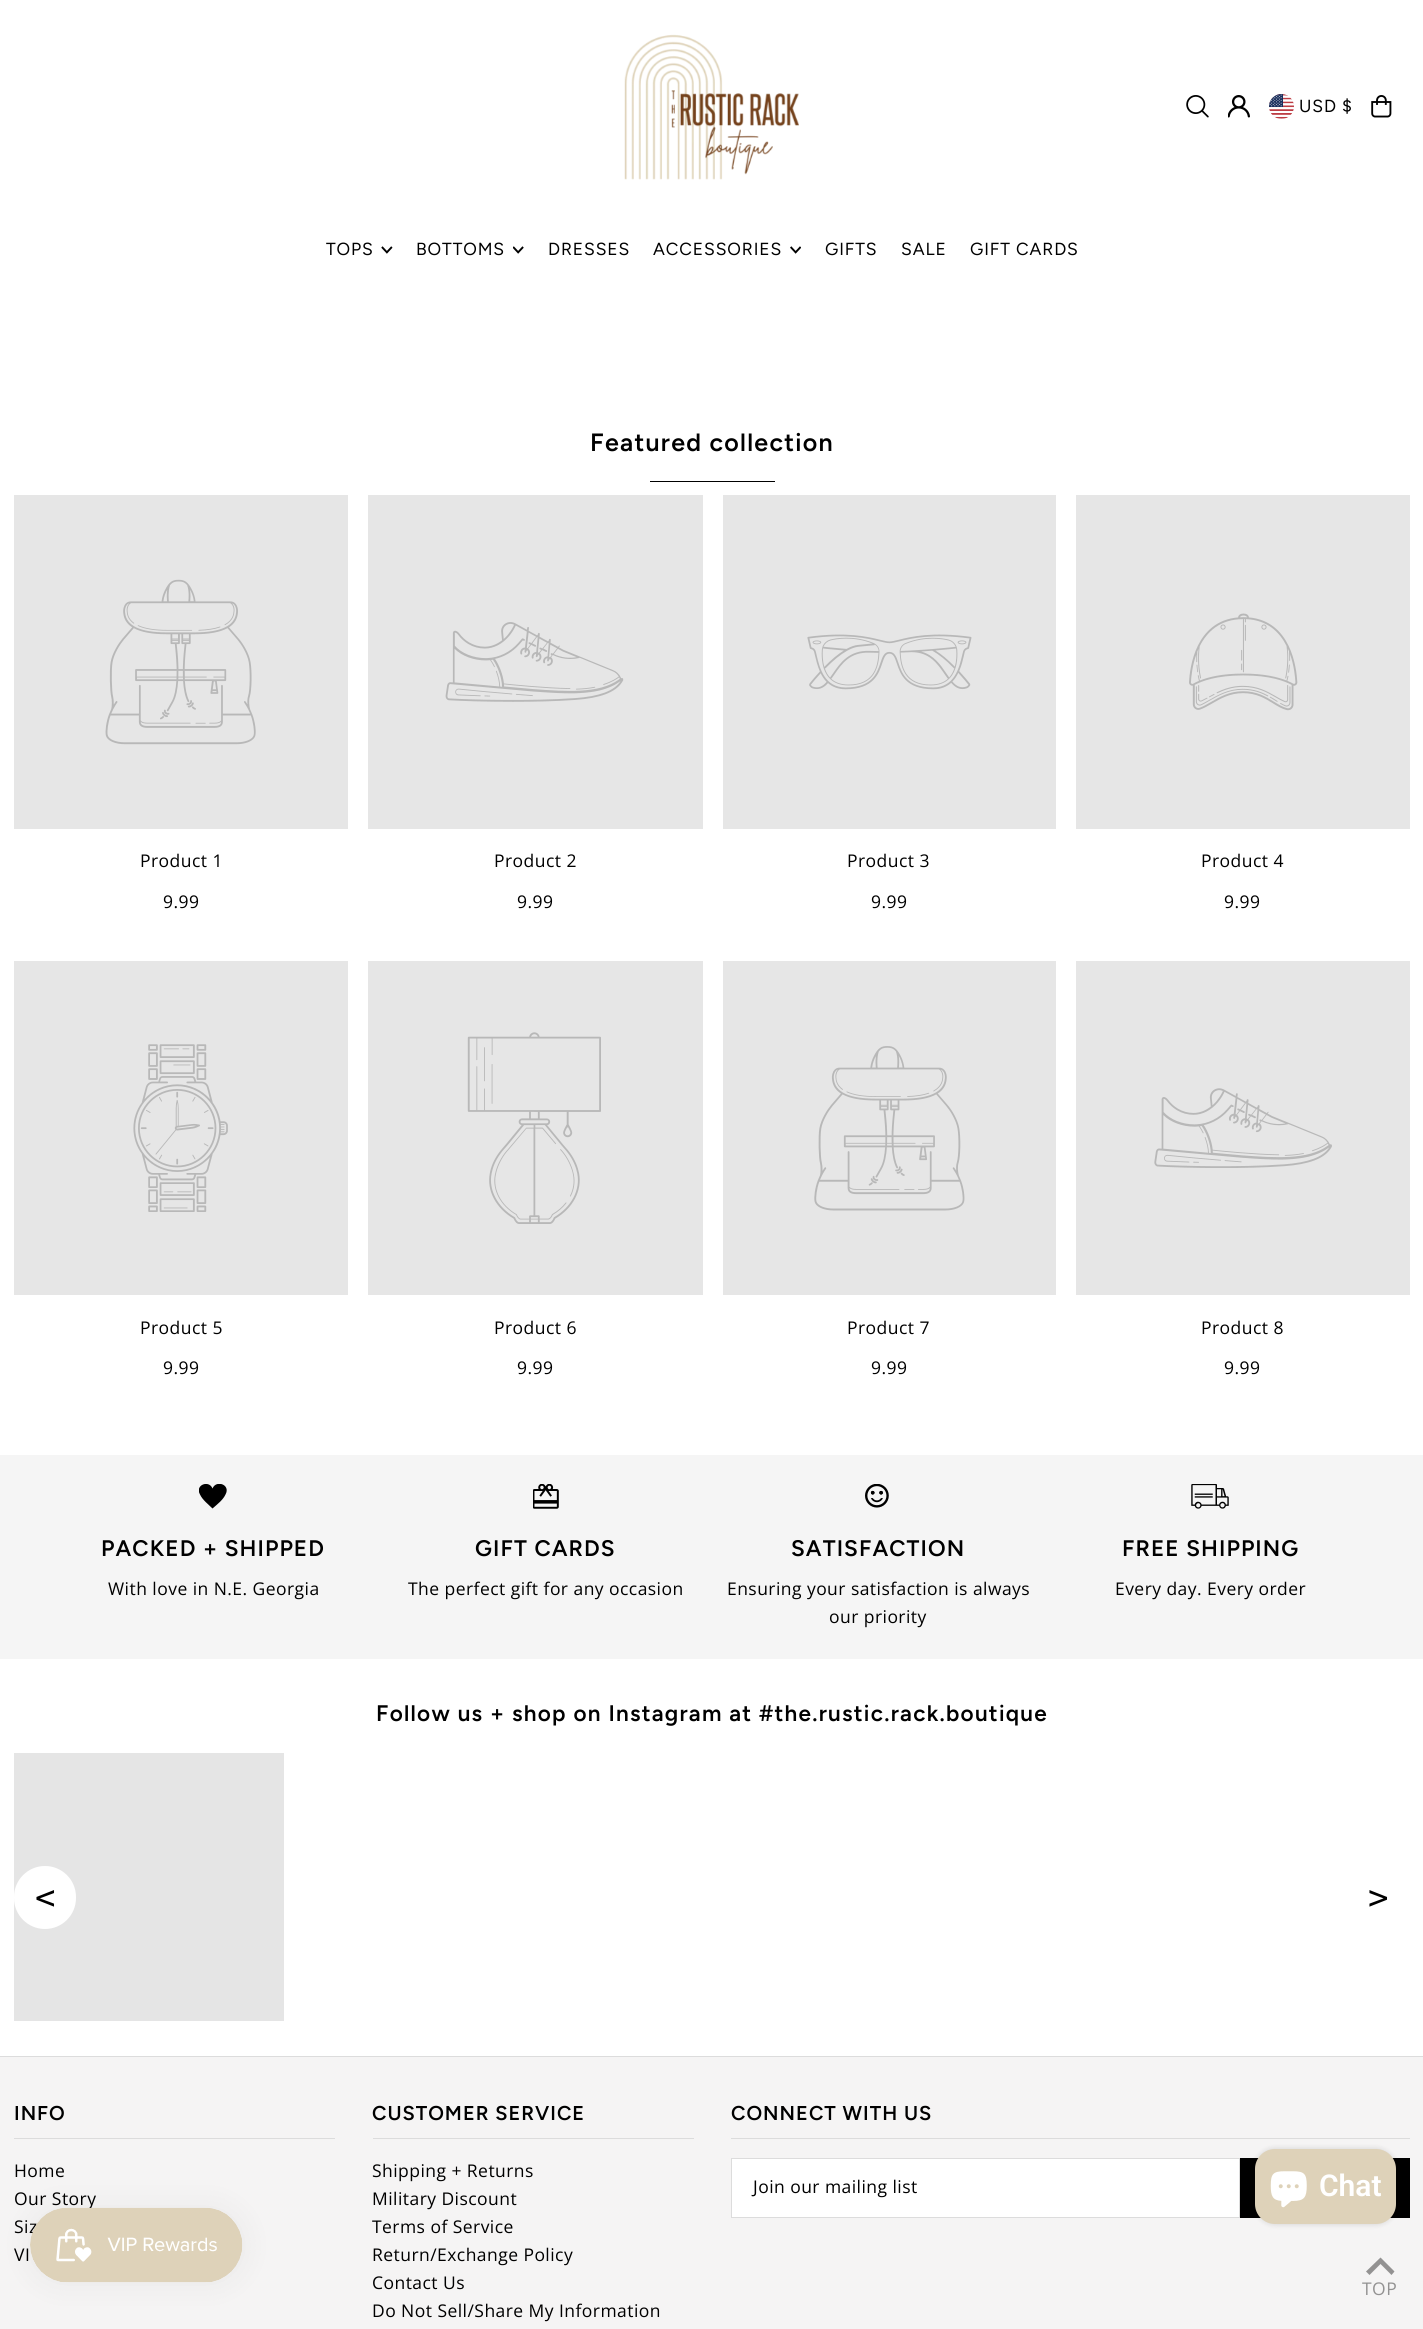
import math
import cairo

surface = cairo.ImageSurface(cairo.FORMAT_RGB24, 1423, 2329)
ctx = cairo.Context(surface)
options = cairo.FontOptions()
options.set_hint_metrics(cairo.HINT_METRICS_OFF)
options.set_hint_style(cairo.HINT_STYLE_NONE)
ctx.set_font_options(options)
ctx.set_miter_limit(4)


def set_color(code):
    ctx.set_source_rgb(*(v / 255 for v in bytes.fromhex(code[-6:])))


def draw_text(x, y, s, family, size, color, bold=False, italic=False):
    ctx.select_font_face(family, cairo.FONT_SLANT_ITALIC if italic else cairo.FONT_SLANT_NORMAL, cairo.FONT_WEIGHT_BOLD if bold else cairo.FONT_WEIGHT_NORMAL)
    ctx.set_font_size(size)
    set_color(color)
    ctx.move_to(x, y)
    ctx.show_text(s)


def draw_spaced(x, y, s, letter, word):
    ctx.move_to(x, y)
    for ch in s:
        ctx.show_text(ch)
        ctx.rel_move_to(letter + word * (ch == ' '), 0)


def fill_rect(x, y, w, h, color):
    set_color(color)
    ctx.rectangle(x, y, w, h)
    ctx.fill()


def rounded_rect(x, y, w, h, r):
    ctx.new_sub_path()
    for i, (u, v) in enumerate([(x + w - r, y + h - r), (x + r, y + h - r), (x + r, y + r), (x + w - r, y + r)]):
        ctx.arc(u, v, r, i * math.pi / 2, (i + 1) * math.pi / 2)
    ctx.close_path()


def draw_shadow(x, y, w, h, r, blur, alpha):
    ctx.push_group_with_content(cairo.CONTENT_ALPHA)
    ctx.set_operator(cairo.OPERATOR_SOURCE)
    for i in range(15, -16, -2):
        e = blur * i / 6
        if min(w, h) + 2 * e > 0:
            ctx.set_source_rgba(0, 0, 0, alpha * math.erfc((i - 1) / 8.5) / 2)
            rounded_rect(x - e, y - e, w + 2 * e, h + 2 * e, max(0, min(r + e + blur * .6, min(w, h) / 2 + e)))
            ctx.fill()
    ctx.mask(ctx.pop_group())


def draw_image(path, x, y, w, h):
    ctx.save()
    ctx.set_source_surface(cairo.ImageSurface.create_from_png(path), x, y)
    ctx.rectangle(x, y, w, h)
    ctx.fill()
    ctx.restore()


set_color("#ffffff")
ctx.paint()
draw_image("assets/img1.png", 624, 34, 175, 146)
draw_image("assets/img2.png", 1186, 95, 23, 23)
draw_image("assets/img3.png", 1228, 95, 22, 23)
draw_image("assets/img4.png", 1269, 94, 25, 25)
ctx.select_font_face("Figtree")
ctx.set_font_size(17.5)
set_color("#000000")
draw_spaced(1299, 112, "USD $", 0.9, 0)
draw_image("assets/img5.png", 1371, 95, 21, 23)
draw_spaced(326, 255, "TOPS", 0.9, 0)
draw_image("assets/img6.png", 381, 246, 12, 8)
draw_spaced(416, 255, "BOTTOMS", 0.9, 0)
draw_image("assets/img7.png", 513, 246, 11, 8)
draw_spaced(548, 255, "DRESSES", 0.9, 0)
draw_spaced(653, 255, "ACCESSORIES", 0.9, 0)
draw_image("assets/img8.png", 790, 246, 11, 8)
draw_spaced(825, 255, "GIFTS", 0.9, 0)
draw_spaced(901, 255, "SALE", 0.9, 0)
draw_spaced(970, 255, "GIFT CARDS", 0.9, 0)
ctx.select_font_face("Figtree SemiBold")
ctx.set_font_size(25)
draw_spaced(590, 451, "Featured collection", 1.25, 0)
fill_rect(650, 481, 125, 1, "#000000")
fill_rect(14, 495, 334, 334, "#e6e6e6")
draw_image("assets/img9.png", 105, 579, 151, 166)
ctx.select_font_face("Open Sans")
ctx.set_font_size(17.5)
set_color("#000000")
draw_spaced(140, 867, "Product 1", 0.45, 0)
draw_spaced(163, 908, "9.99", 0.45, 0)
fill_rect(368, 495, 335, 334, "#e6e6e6")
draw_image("assets/img10.png", 445, 622, 179, 80)
set_color("#000000")
draw_spaced(494, 867, "Product 2", 0.45, 0)
draw_spaced(517, 908, "9.99", 0.45, 0)
fill_rect(723, 495, 333, 334, "#e6e6e6")
draw_image("assets/img11.png", 807, 634, 165, 56)
set_color("#000000")
draw_spaced(847, 867, "Product 3", 0.45, 0)
draw_spaced(871, 908, "9.99", 0.45, 0)
fill_rect(1076, 495, 334, 334, "#e6e6e6")
draw_image("assets/img12.png", 1189, 613, 109, 98)
set_color("#000000")
draw_spaced(1201, 867, "Product 4", 0.45, 0)
draw_spaced(1224, 908, "9.99", 0.45, 0)
fill_rect(14, 961, 334, 334, "#e6e6e6")
draw_image("assets/img13.png", 133, 1044, 95, 168)
set_color("#000000")
draw_spaced(140, 1334, "Product 5", 0.45, 0)
draw_spaced(163, 1374, "9.99", 0.45, 0)
fill_rect(368, 961, 335, 334, "#e6e6e6")
draw_image("assets/img14.png", 467, 1032, 134, 192)
set_color("#000000")
draw_spaced(494, 1334, "Product 6", 0.45, 0)
draw_spaced(517, 1374, "9.99", 0.45, 0)
fill_rect(723, 961, 333, 334, "#e6e6e6")
draw_image("assets/img15.png", 814, 1046, 151, 165)
set_color("#000000")
draw_spaced(847, 1334, "Product 7", 0.45, 0)
draw_spaced(871, 1374, "9.99", 0.45, 0)
fill_rect(1076, 961, 334, 334, "#e6e6e6")
draw_image("assets/img16.png", 1154, 1088, 178, 80)
set_color("#000000")
draw_spaced(1201, 1334, "Product 8", 0.45, 0)
draw_spaced(1224, 1374, "9.99", 0.45, 0)
fill_rect(0, 1455, 1423, 204, "#f5f5f5")
ctx.save()
ctx.rectangle(199, 1484, 29, 25)
ctx.clip()
set_color("#000000")
ctx.new_path()
ctx.move_to(212.5, 1488.5)
ctx.curve_to(209, 1479.5, 194.5, 1485, 200, 1494.5)
ctx.curve_to(202.5, 1500, 208.5, 1504.5, 212.5, 1508.5)
ctx.curve_to(217, 1504.5, 223, 1500, 225.5, 1494.5)
ctx.curve_to(231, 1484.5, 216, 1479.5, 212.5, 1488.5)
ctx.close_path()
ctx.fill()
ctx.restore()
ctx.select_font_face("Figtree SemiBold")
ctx.set_font_size(22.5)
set_color("#000000")
draw_spaced(101, 1556, "PACKED + SHIPPED", 1.1, 0)
ctx.select_font_face("Open Sans")
ctx.set_font_size(17.5)
draw_spaced(108, 1595, "With love in N.E. Georgia", 0.45, 0)
draw_image("assets/img17.png", 533, 1484, 26, 25)
ctx.select_font_face("Figtree SemiBold")
ctx.set_font_size(22.5)
draw_spaced(475, 1556, "GIFT CARDS", 1.1, 0)
ctx.select_font_face("Open Sans")
ctx.set_font_size(17.5)
draw_spaced(408, 1595, "The perfect gift for any occasion", 0.45, 0)
draw_image("assets/img18.png", 865, 1484, 24, 24)
ctx.select_font_face("Figtree SemiBold")
ctx.set_font_size(22.5)
draw_spaced(791, 1556, "SATISFACTION", 1.1, 0)
ctx.select_font_face("Open Sans")
ctx.set_font_size(17.5)
draw_spaced(727, 1595, "Ensuring your satisfaction is always", 0.45, 0)
draw_spaced(829, 1623, "our priority", 0.45, 0)
draw_image("assets/img19.png", 1191, 1484, 38, 25)
ctx.select_font_face("Figtree SemiBold")
ctx.set_font_size(22.5)
draw_spaced(1122, 1556, "FREE SHIPPING", 1.1, 0)
ctx.select_font_face("Open Sans")
ctx.set_font_size(17.5)
draw_spaced(1115, 1595, "Every day. Every order", 0.45, 0)
ctx.select_font_face("Figtree SemiBold")
ctx.set_font_size(22.5)
draw_spaced(376, 1721, "Follow us + shop on Instagram at #the.rustic.rack.boutique", 1.25, 0)
fill_rect(14, 1753, 270, 268, "#e5e5e5")
set_color("#ffffff")
rounded_rect(14, 1866, 62, 63, 31)
ctx.fill()
ctx.select_font_face("DejaVu Sans Mono")
ctx.set_font_size(34)
set_color("#000000")
draw_spaced(35, 1909, "<", 0.45, 0)
draw_spaced(1368, 1909, ">", 0.45, 0)
fill_rect(0, 2057, 1423, 272, "#f5f4f4")
fill_rect(0, 2056, 1423, 1, "#dcdcdc")
fill_rect(14, 2138, 321, 1, "#dcdcdc")
ctx.select_font_face("Figtree SemiBold")
ctx.set_font_size(20)
set_color("#000000")
draw_spaced(14, 2120, "INFO", 1, 0)
ctx.select_font_face("Open Sans")
ctx.set_font_size(17.5)
draw_spaced(14, 2177, "Home", 0.45, 0)
draw_spaced(14, 2205, "Our Story", 0.45, 0)
draw_spaced(14, 2233, "Siz", 0.45, 0)
draw_spaced(14, 2261, "VI", 0.45, 0)
fill_rect(373, 2138, 321, 1, "#dcdcdc")
ctx.select_font_face("Figtree SemiBold")
ctx.set_font_size(20)
set_color("#000000")
draw_spaced(372, 2120, "CUSTOMER SERVICE", 1, 0)
ctx.select_font_face("Open Sans")
ctx.set_font_size(17.5)
draw_spaced(372, 2177, "Shipping + Returns", 0.45, 0)
draw_spaced(372, 2205, "Military Discount", 0.45, 0)
draw_spaced(372, 2233, "Terms of Service", 0.45, 0)
draw_spaced(372, 2261, "Return/Exchange Policy", 0.45, 0)
draw_spaced(372, 2289, "Contact Us", 0.45, 0)
draw_spaced(372, 2317, "Do Not Sell/Share My Information", 0.45, 0)
fill_rect(731, 2138, 679, 1, "#dcdcdc")
ctx.select_font_face("Figtree SemiBold")
ctx.set_font_size(20)
set_color("#000000")
draw_spaced(731, 2120, "CONNECT WITH US", 1, 0)
set_color("#ffffff")
ctx.rectangle(731.5, 2158.5, 508, 59)
ctx.fill_preserve()
set_color("#dcdcdc")
ctx.set_line_width(1)
ctx.stroke()
ctx.select_font_face("Open Sans")
ctx.set_font_size(17.5)
set_color("#000000")
draw_spaced(753, 2193, "Join our mailing list", 0.45, 0)
fill_rect(1240, 2158, 170, 60, "#000000")
set_color("#000000")
draw_shadow(30, 2208, 213, 75, 37.5, 15.5, 0.05)
draw_image("assets/img20.png", 30, 2207, 213, 76)
draw_shadow(1255, 2149, 141, 75, 20, 3, 0.15)
set_color("#ded2b9")
rounded_rect(1255, 2149, 141, 75, 20)
ctx.fill()
draw_image("assets/img21.png", 1270, 2171, 37, 37)
draw_text(1319, 2196, "Chat", "Roboto SemiBold", 30, "#ffffff")
set_color("#939292")
ctx.new_path()
ctx.move_to(1380.5, 2257.5)
ctx.line_to(1366, 2271.5)
ctx.line_to(1369.5, 2275)
ctx.line_to(1380.5, 2264)
ctx.line_to(1391.5, 2275)
ctx.line_to(1394.5, 2271.5)
ctx.close_path()
ctx.fill()
ctx.select_font_face("Open Sans")
ctx.set_font_size(17.5)
draw_spaced(1362, 2295, "TOP", 0.45, 0)
surface.write_to_png("output.png")
